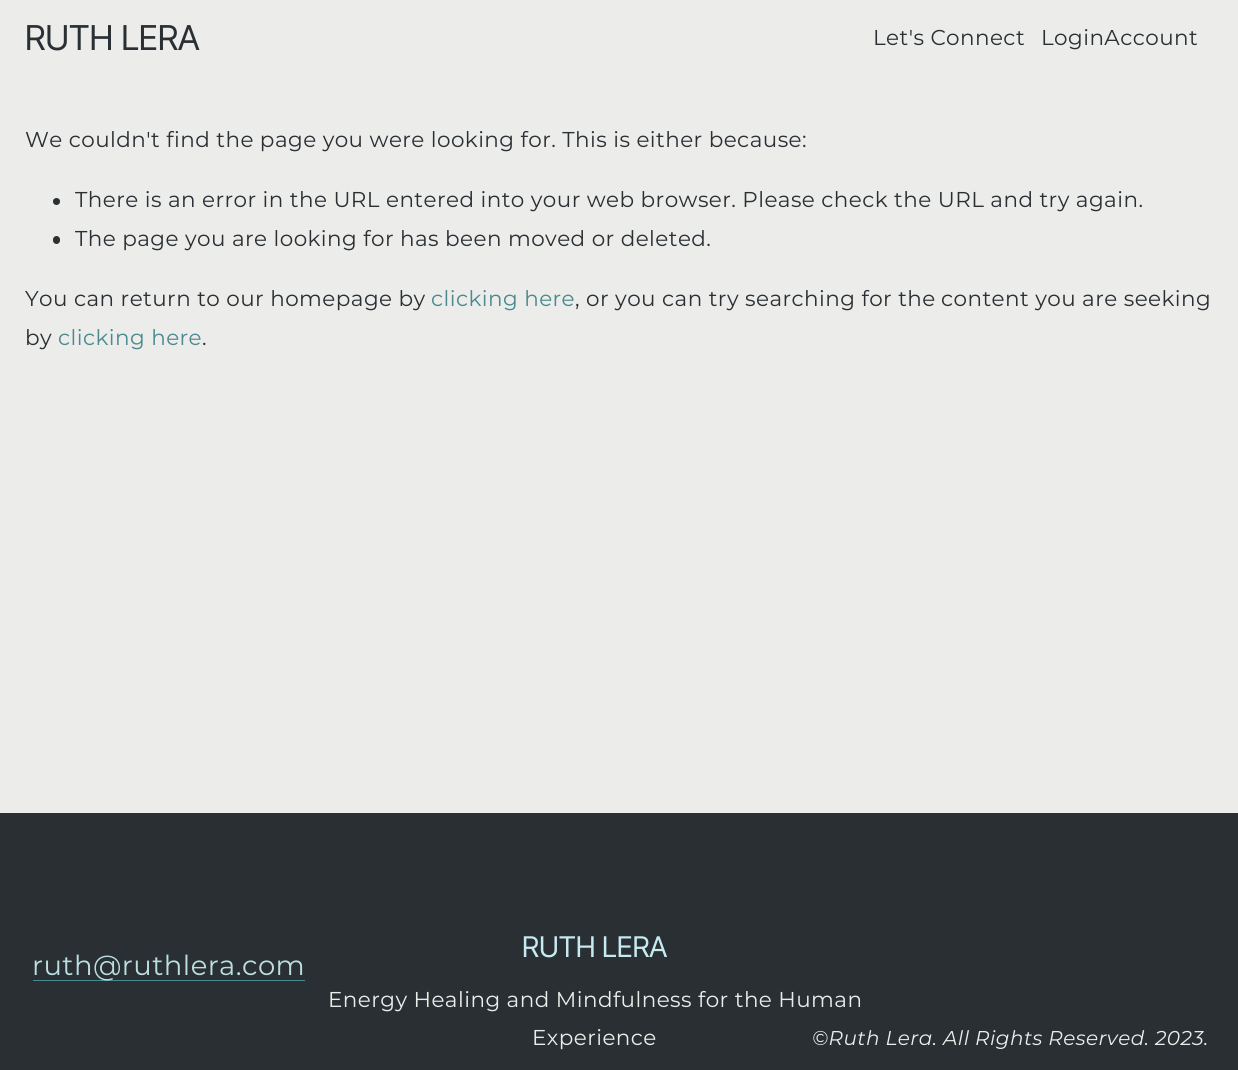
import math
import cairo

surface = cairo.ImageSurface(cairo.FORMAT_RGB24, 1238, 1070)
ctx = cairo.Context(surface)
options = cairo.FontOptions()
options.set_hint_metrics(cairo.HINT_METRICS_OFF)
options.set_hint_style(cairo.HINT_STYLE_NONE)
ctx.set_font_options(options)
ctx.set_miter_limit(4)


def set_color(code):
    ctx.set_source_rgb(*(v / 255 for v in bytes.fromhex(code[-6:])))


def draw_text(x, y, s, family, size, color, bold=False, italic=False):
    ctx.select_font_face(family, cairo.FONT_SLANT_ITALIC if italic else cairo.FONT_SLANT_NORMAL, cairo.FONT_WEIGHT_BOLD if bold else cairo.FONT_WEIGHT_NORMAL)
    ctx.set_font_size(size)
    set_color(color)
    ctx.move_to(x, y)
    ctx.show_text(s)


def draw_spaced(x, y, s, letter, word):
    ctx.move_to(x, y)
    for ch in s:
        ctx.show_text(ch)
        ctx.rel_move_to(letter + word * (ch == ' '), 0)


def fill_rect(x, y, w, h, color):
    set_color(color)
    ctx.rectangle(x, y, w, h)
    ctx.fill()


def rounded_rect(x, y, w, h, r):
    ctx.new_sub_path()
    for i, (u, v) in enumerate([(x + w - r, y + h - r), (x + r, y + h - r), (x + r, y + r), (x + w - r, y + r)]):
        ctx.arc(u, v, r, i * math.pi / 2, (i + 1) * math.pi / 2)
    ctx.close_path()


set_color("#ececeb")
ctx.paint()
draw_text(25, 50, "RUTH LERA", "Inter Tight", 34.25, "#292f33")
ctx.select_font_face("Montserrat")
ctx.set_font_size(21.5)
draw_spaced(873, 45, "Let's Connect", 0.43, 0)
draw_spaced(1041, 45, "LoginAccount", 0.43, 0)
draw_spaced(25, 147, "We couldn't find the page you were looking for. This is either because:", 0.43, 0)
ctx.new_path()
ctx.arc(56.5, 201.5, 3.5, 0, 2 * math.pi)
ctx.fill()
draw_spaced(75, 207, "There is an error in the URL entered into your web browser. Please check the URL and try again.", 0.43, 0)
rounded_rect(53, 236, 7, 8, 3.5)
ctx.fill()
draw_spaced(75, 246, "The page you are looking for has been moved or deleted.", 0.43, 0)
draw_spaced(25, 306, "You can return to our homepage by", 0.43, 0)
set_color("#4a8a8e")
draw_spaced(431, 306, "clicking here", 0.43, 0)
set_color("#292f33")
draw_spaced(575, 306, ", or you can try searching for the", 0.43, 0)
draw_spaced(941, 306, "content you are seeking", 0.43, 0)
draw_spaced(25, 345, "by", 0.43, 0)
set_color("#4a8a8e")
draw_spaced(58, 345, "clicking here", 0.43, 0)
set_color("#292f33")
draw_spaced(202, 345, ".", 0.43, 0)
fill_rect(0, 813, 1238, 257, "#292f33")
draw_text(522, 957, "RUTH LERA", "Inter Tight", 28.5, "#c5ebf0")
fill_rect(33, 980, 272, 1, "#4a8a8e")
ctx.select_font_face("Montserrat")
ctx.set_font_size(27.5)
set_color("#bcdee2")
draw_spaced(32, 975, "ruth@ruthlera.com", 0.43, 0)
ctx.set_font_size(21.5)
set_color("#ececeb")
draw_spaced(328, 1007, "Energy Healing and Mindfulness for the Human", 0.43, 0)
draw_spaced(532, 1045, "Experience", 0.43, 0)
ctx.select_font_face("Montserrat", cairo.FONT_SLANT_ITALIC)
ctx.set_font_size(20)
draw_spaced(812, 1045, "©Ruth Lera. All Rights Reserved. 2023.", 0.43, 0)
surface.write_to_png("output.png")
